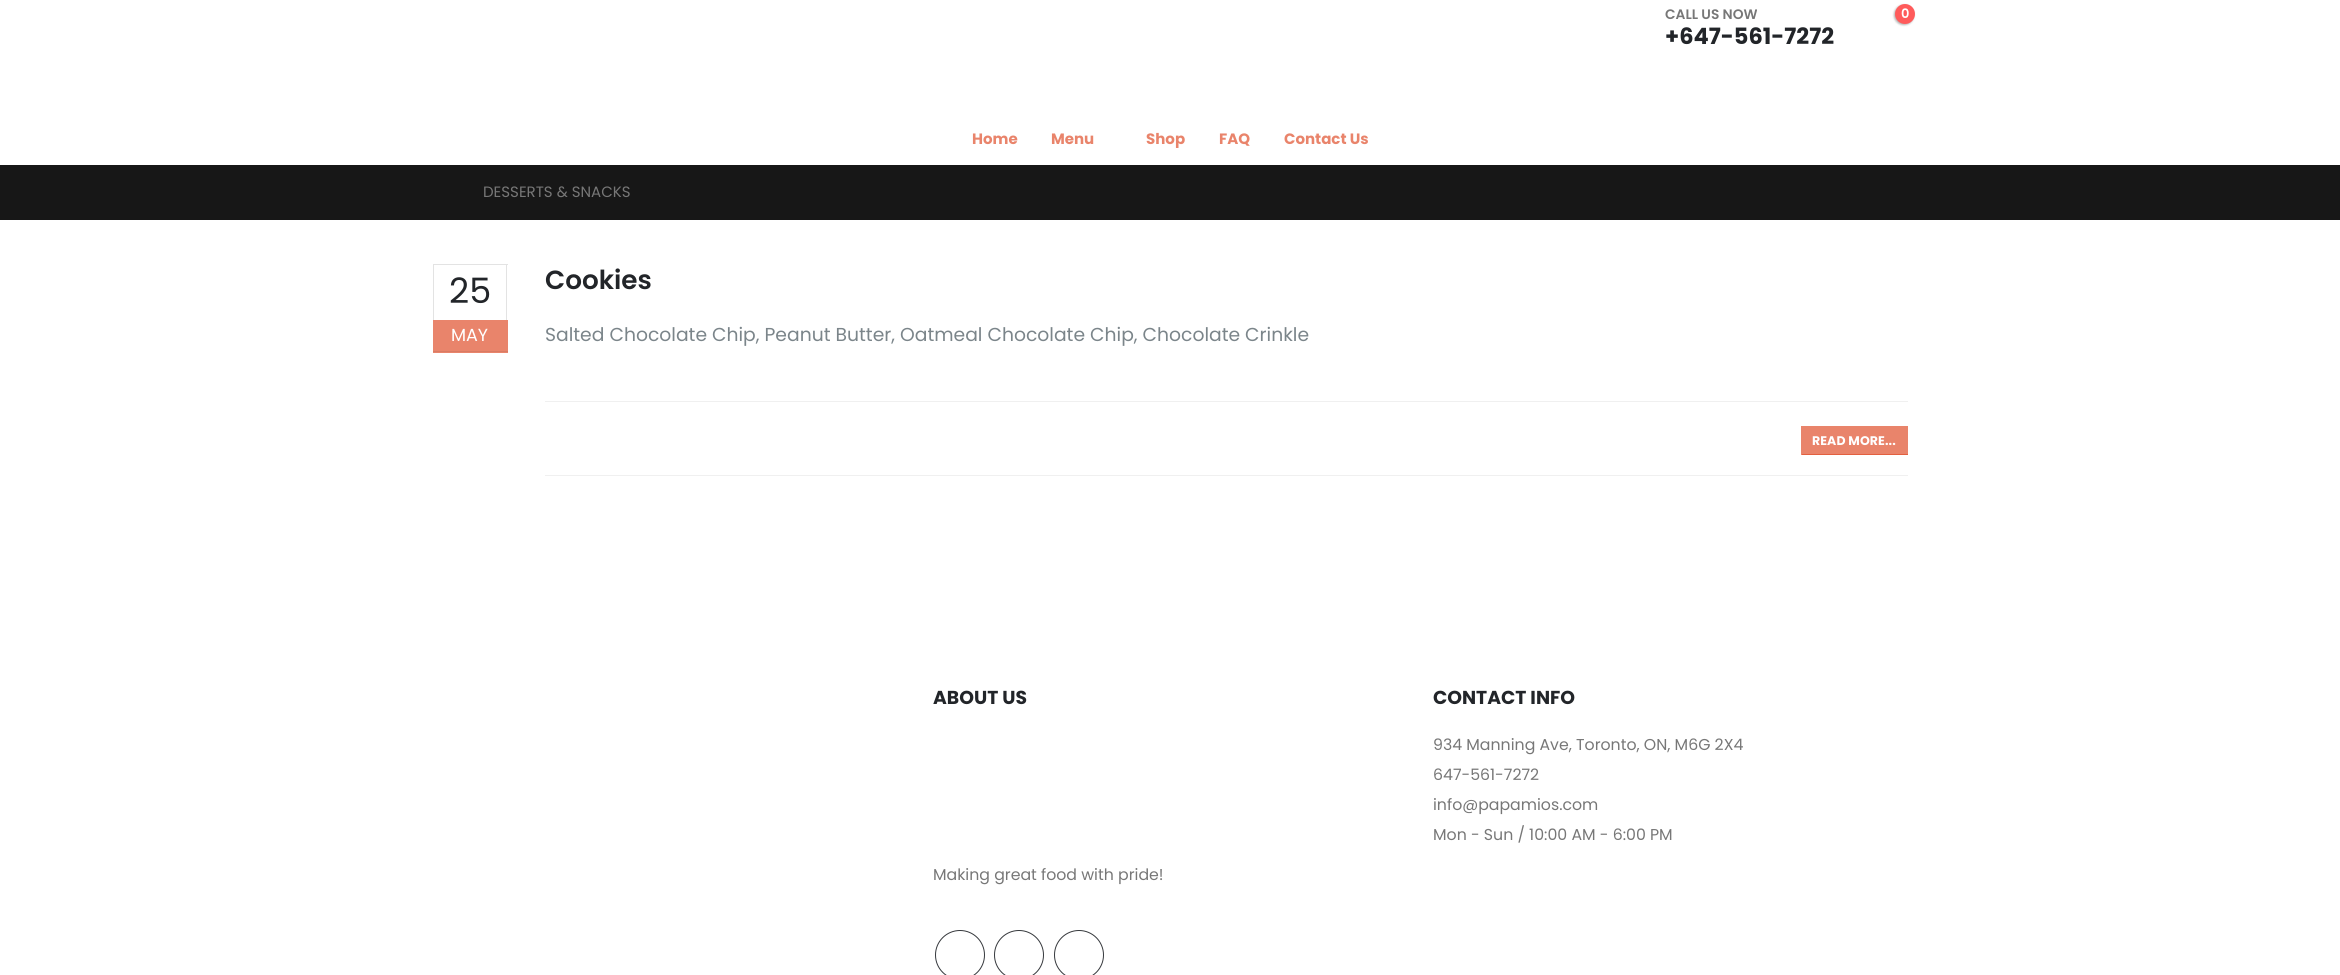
import math
import cairo

surface = cairo.ImageSurface(cairo.FORMAT_RGB24, 2340, 975)
ctx = cairo.Context(surface)
options = cairo.FontOptions()
options.set_hint_metrics(cairo.HINT_METRICS_OFF)
options.set_hint_style(cairo.HINT_STYLE_NONE)
ctx.set_font_options(options)
ctx.set_miter_limit(4)


def set_color(code):
    ctx.set_source_rgb(*(v / 255 for v in bytes.fromhex(code[-6:])))


def draw_text(x, y, s, family, size, color, bold=False, italic=False):
    ctx.select_font_face(family, cairo.FONT_SLANT_ITALIC if italic else cairo.FONT_SLANT_NORMAL, cairo.FONT_WEIGHT_BOLD if bold else cairo.FONT_WEIGHT_NORMAL)
    ctx.set_font_size(size)
    set_color(color)
    ctx.move_to(x, y)
    ctx.show_text(s)


def draw_spaced(x, y, s, letter, word):
    ctx.move_to(x, y)
    for ch in s:
        ctx.show_text(ch)
        ctx.rel_move_to(letter + word * (ch == ' '), 0)


def fill_rect(x, y, w, h, color):
    set_color(color)
    ctx.rectangle(x, y, w, h)
    ctx.fill()


def rounded_rect(x, y, w, h, r):
    ctx.new_sub_path()
    for i, (u, v) in enumerate([(x + w - r, y + h - r), (x + r, y + h - r), (x + r, y + r), (x + w - r, y + r)]):
        ctx.arc(u, v, r, i * math.pi / 2, (i + 1) * math.pi / 2)
    ctx.close_path()


def draw_shadow(x, y, w, h, r, blur, alpha):
    ctx.push_group_with_content(cairo.CONTENT_ALPHA)
    ctx.set_operator(cairo.OPERATOR_SOURCE)
    for i in range(15, -16, -2):
        e = blur * i / 6
        if min(w, h) + 2 * e > 0:
            ctx.set_source_rgba(0, 0, 0, alpha * math.erfc((i - 1) / 8.5) / 2)
            rounded_rect(x - e, y - e, w + 2 * e, h + 2 * e, max(0, min(r + e + blur * .6, min(w, h) / 2 + e)))
            ctx.fill()
    ctx.mask(ctx.pop_group())


set_color("#ffffff")
ctx.paint()
draw_text(1665, 19, "CALL US NOW", "Poppins SemiBold", 13.75, "#777777")
draw_text(1665, 44, "+647-561-7272", "Poppins", 22.5, "#222529", bold=True)
set_color("#000000")
draw_shadow(1894, 5, 20, 20, 10, 1, 0.3)
set_color("#ff5b5b")
ctx.arc(1905, 14, 10, 0, 2 * math.pi)
ctx.fill()
draw_text(1901, 18, "0", "Poppins SemiBold", 13, "#ffffff")
draw_text(972, 144, "Home", "Poppins", 15, "#e9846b", bold=True)
draw_text(1051, 144, "Menu", "Poppins", 15, "#e9846b", bold=True)
draw_text(1146, 144, "Shop", "Poppins", 15, "#e9846b", bold=True)
draw_text(1219, 144, "FAQ", "Poppins", 15, "#e9846b", bold=True)
draw_text(1284, 144, "Contact Us", "Poppins", 15, "#e9846b", bold=True)
fill_rect(0, 165, 2340, 55, "#171717")
draw_text(483, 197, "DESSERTS & SNACKS", "Poppins", 15, "#777777")
fill_rect(545, 475, 1363, 1, "#f0f0f0")
fill_rect(433, 264, 75, 1, "#e3e3e3")
fill_rect(506, 264, 1, 56, "#e3e3e3")
fill_rect(433, 264, 1, 56, "#e3e3e3")
draw_text(449, 303, "25", "Poppins", 35, "#222529")
fill_rect(433, 320, 75, 33, "#e9846b")
fill_rect(433, 351, 75, 1, "#d97b64")
draw_text(451, 341, "MAY", "Poppins", 17.5, "#ffffff")
fill_rect(545, 401, 1363, 1, "#f0f0f0")
draw_text(545, 289, "Cookies", "Poppins SemiBold", 26.25, "#222529")
draw_text(545, 341, "Salted Chocolate Chip, Peanut Butter, Oatmeal Chocolate Chip, Chocolate Crinkle", "Poppins", 18.75, "#7b858a")
fill_rect(1802, 426, 106, 28, "#e9846b")
fill_rect(1801, 454, 107, 1, "#e3603f")
fill_rect(1801, 426, 1, 29, "#e9846b")
ctx.select_font_face("Poppins", cairo.FONT_SLANT_NORMAL, cairo.FONT_WEIGHT_BOLD)
ctx.set_font_size(12.5)
set_color("#ffffff")
draw_spaced(1812, 445, "READ MORE...", 0.1, 0)
draw_text(933, 704, "ABOUT US", "Poppins", 18.75, "#222529", bold=True)
draw_text(933, 880, "Making great food with pride!", "Poppins", 15.75, "#777777")
ctx.new_path()
ctx.arc(960, 955, 24.5, 0, 2 * math.pi)
set_color("#36393d")
ctx.set_line_width(1)
ctx.stroke()
ctx.arc(1019, 955, 24.5, 0, 2 * math.pi)
ctx.stroke()
ctx.arc(1079, 955, 24.5, 0, 2 * math.pi)
ctx.stroke()
draw_text(1433, 704, "CONTACT INFO", "Poppins", 18.75, "#222529", bold=True)
draw_text(1433, 750, "934 Manning Ave, Toronto, ON, M6G 2X4", "Poppins", 15.75, "#777777")
draw_text(1433, 780, "647-561-7272", "Poppins", 15.75, "#777777")
draw_text(1433, 810, "info@papamios.com", "Poppins", 15.75, "#777777")
draw_text(1433, 840, "Mon - Sun / 10:00 AM - 6:00 PM", "Poppins", 15.75, "#777777")
surface.write_to_png("output.png")
